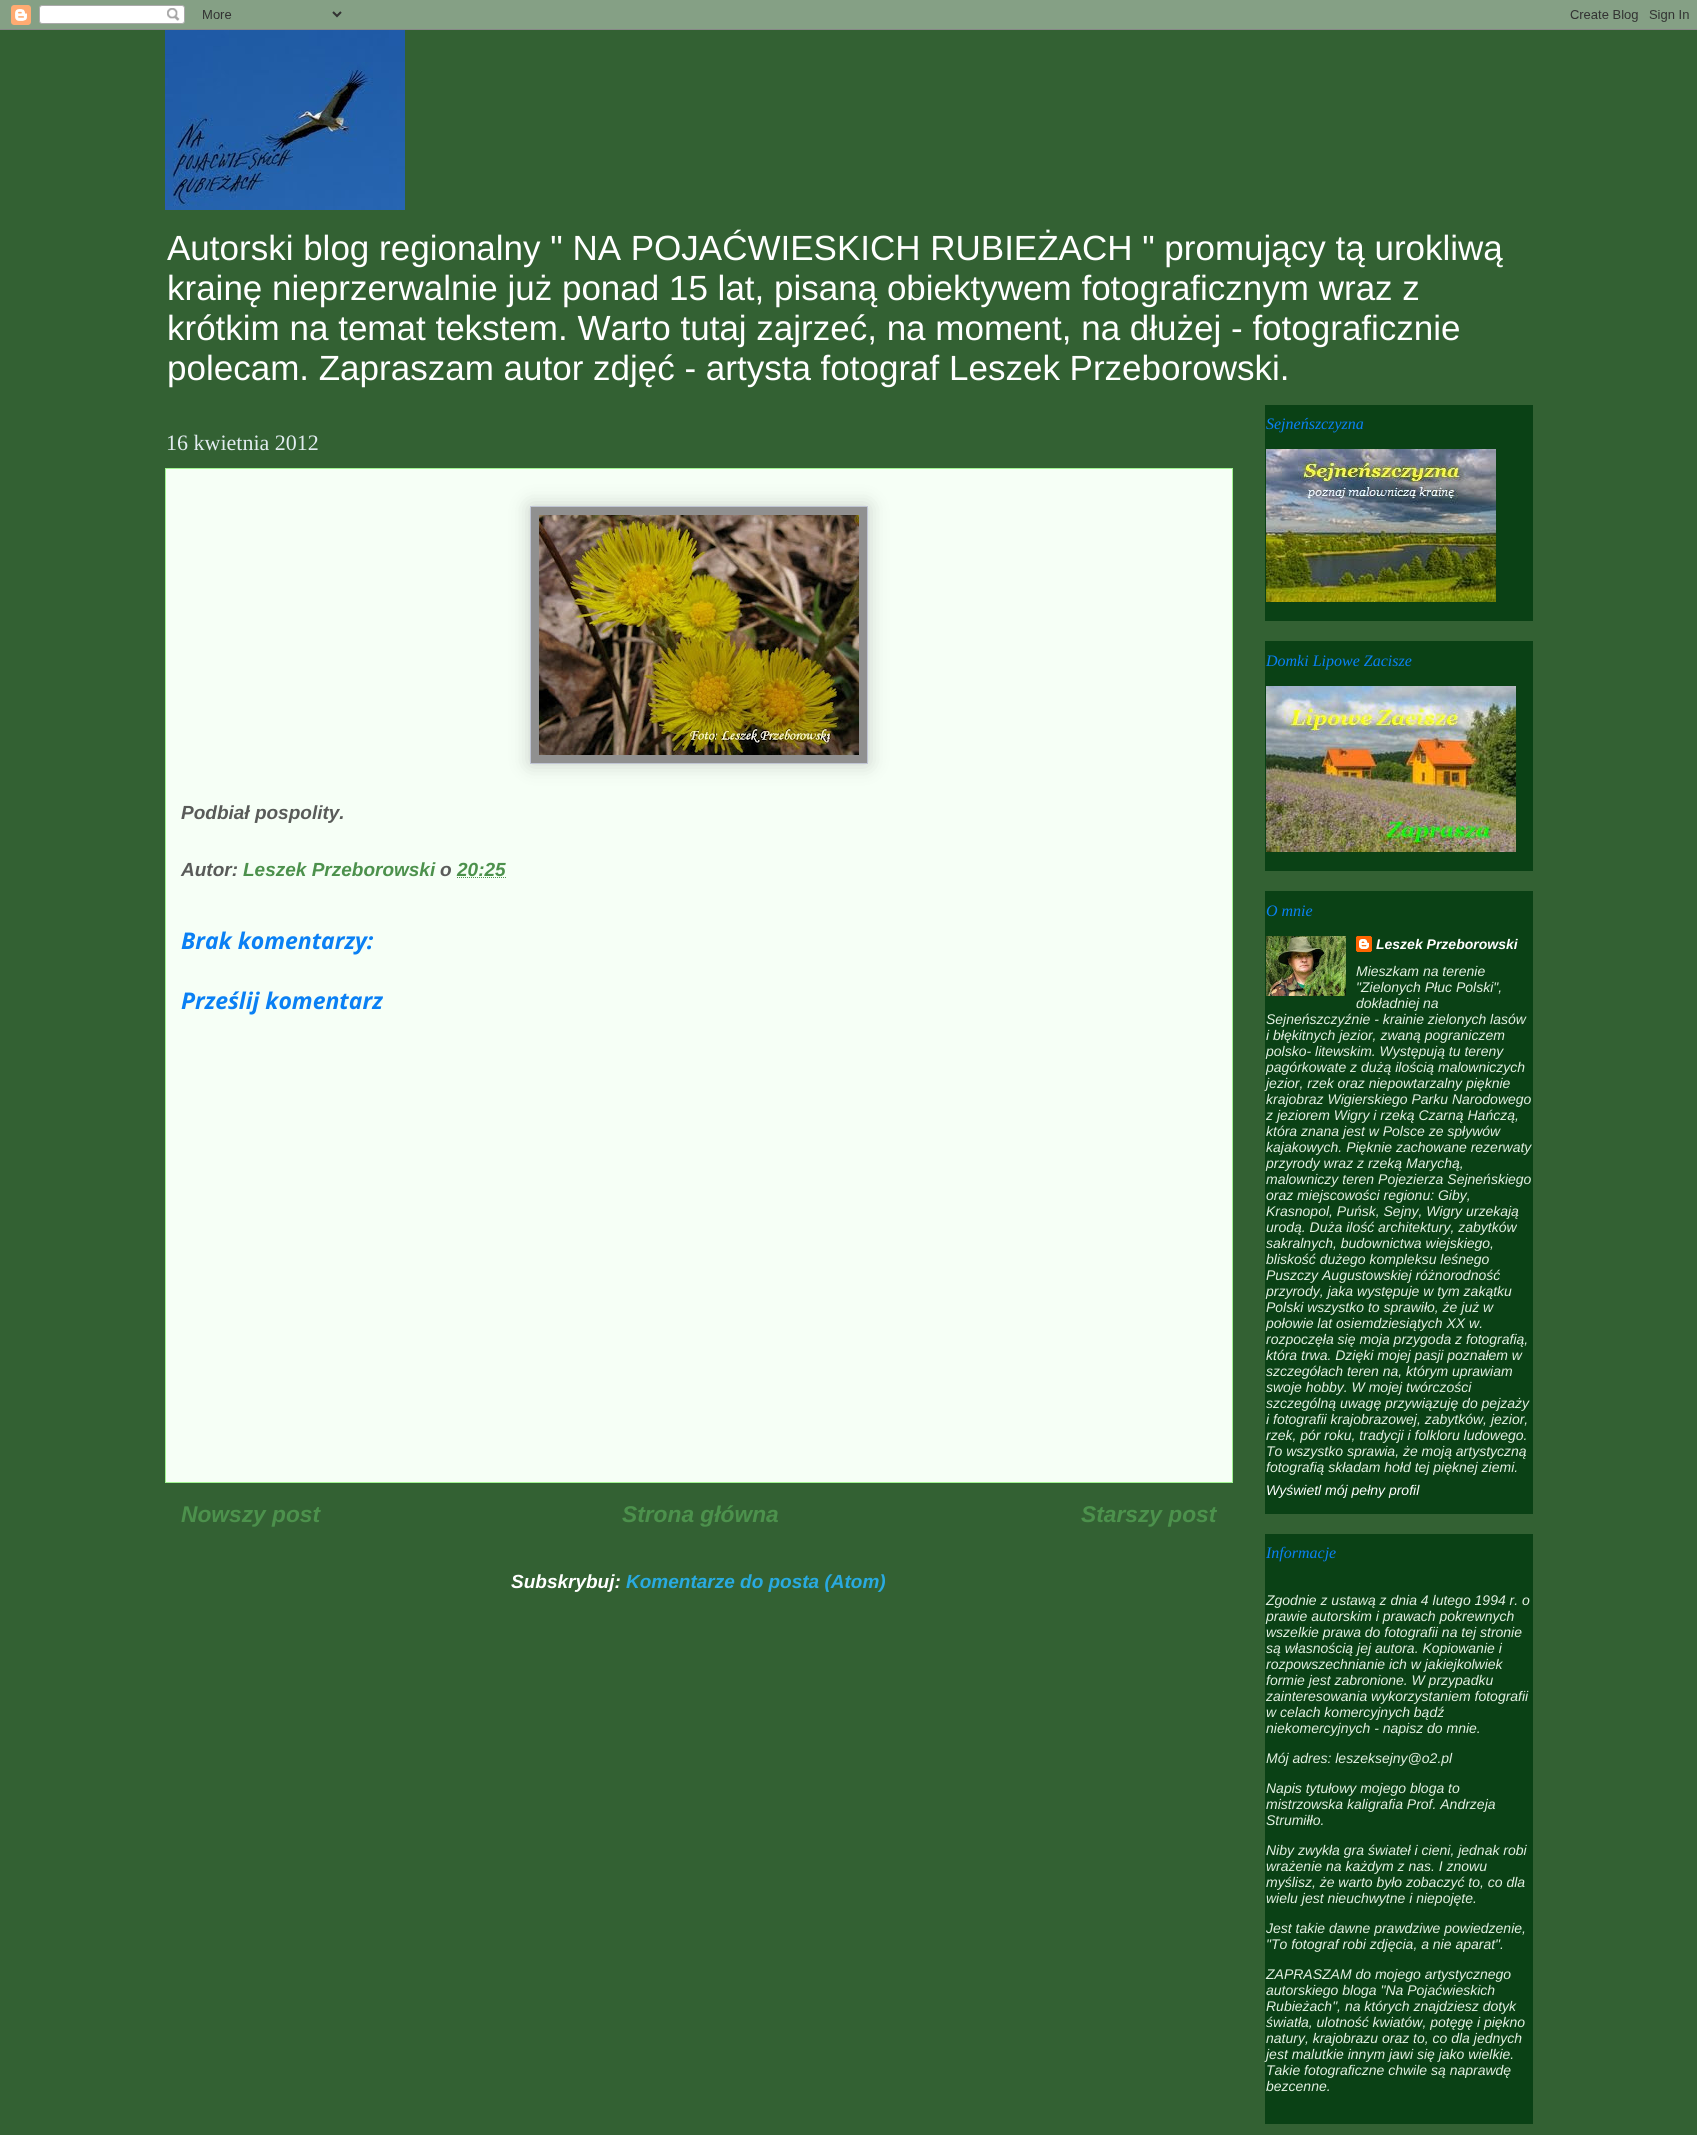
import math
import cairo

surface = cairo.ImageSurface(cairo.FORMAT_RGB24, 1697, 2135)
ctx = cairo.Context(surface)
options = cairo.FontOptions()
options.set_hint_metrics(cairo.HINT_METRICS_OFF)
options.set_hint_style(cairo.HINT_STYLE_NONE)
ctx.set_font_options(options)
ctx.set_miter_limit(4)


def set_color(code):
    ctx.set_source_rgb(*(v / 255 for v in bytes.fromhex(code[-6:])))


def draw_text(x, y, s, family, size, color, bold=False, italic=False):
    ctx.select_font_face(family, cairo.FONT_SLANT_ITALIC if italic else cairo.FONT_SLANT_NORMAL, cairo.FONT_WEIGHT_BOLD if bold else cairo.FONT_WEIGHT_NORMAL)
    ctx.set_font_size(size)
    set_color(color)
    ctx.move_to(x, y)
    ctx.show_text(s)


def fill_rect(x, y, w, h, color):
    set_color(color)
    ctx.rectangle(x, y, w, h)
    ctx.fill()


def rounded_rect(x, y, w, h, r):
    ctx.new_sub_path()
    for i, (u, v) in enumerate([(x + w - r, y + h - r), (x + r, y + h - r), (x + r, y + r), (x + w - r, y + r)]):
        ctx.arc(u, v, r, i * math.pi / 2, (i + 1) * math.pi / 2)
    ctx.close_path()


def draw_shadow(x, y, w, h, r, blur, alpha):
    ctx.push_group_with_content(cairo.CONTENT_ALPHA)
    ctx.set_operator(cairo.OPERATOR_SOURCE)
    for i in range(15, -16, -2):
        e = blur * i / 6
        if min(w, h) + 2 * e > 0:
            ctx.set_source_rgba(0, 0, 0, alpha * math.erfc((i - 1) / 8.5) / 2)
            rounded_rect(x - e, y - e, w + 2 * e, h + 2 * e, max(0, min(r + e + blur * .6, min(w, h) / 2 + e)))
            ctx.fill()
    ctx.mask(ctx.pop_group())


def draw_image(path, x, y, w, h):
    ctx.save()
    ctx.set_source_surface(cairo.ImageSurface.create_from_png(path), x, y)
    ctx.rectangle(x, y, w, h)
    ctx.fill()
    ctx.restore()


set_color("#336133")
ctx.paint()
draw_image("assets/img1.png", 0, 0, 1697, 30)
draw_image("assets/img2.png", 165, 30, 240, 180)
draw_text(167, 260, "Autorski blog regionalny \" NA POJAĆWIESKICH RUBIEŻACH \" promujący tą urokliwą", "Liberation Sans", 35, "#ffffff")
draw_text(167, 300, "krainę nieprzerwalnie już ponad 15 lat, pisaną obiektywem fotograficznym wraz z", "Liberation Sans", 35, "#ffffff")
draw_text(167, 340, "krótkim na temat tekstem. Warto tutaj zajrzeć, na moment, na dłużej - fotograficznie", "Liberation Sans", 35, "#ffffff")
draw_text(167, 380, "polecam. Zapraszam autor zdjęć - artysta fotograf Leszek Przeborowski.", "Liberation Sans", 35, "#ffffff")
set_color("#f6fff6")
ctx.rectangle(165.5, 468.5, 1067, 1014)
ctx.fill_preserve()
set_color("#a0f591")
ctx.set_line_width(1)
ctx.stroke()
draw_text(166, 450, "16 kwietnia 2012", "Liberation Serif", 22, "#e2ecf0")
set_color("#000000")
draw_shadow(530, 506, 338, 258, 0, 10, 0.2)
set_color("#909090")
ctx.rectangle(530.5, 506.5, 337, 257)
ctx.fill_preserve()
set_color("#bfc4d4")
ctx.stroke()
draw_image("assets/img3.png", 539, 515, 320, 240)
draw_text(181, 819, "Podbiał pospolity.", "Liberation Sans", 19, "#595b59", bold=True, italic=True)
draw_text(181, 876, "Autor:", "Liberation Sans", 19, "#595b59", bold=True, italic=True)
draw_text(243, 876, "Leszek Przeborowski", "Liberation Sans", 19, "#4c914c", bold=True, italic=True)
draw_text(440, 876, "o", "Liberation Sans", 19, "#595b59", bold=True, italic=True)
draw_text(457, 876, "20:25", "Liberation Sans", 19, "#4c914c", bold=True, italic=True)
ctx.new_path()
ctx.move_to(457, 877.5)
ctx.line_to(506, 877.5)
ctx.set_dash([1, 1])
ctx.stroke()
draw_text(181, 949, "Brak komentarzy:", "Open Sans", 23, "#0a80f4", bold=True, italic=True)
draw_text(181, 1009, "Prześlij komentarz", "Open Sans", 23, "#0a80f4", bold=True, italic=True)
draw_text(181, 1522, "Nowszy post", "Liberation Sans", 22.75, "#4c914c", bold=True, italic=True)
draw_text(622, 1522, "Strona główna", "Liberation Sans", 22.75, "#4c914c", bold=True, italic=True)
draw_text(1081, 1522, "Starszy post", "Liberation Sans", 22.75, "#4c914c", bold=True, italic=True)
draw_text(511, 1588, "Subskrybuj:", "Liberation Sans", 19, "#ffffff", bold=True, italic=True)
draw_text(626, 1588, "Komentarze do posta (Atom)", "Liberation Sans", 19, "#29aae1", bold=True, italic=True)
fill_rect(1265, 405, 268, 216, "#0a4115")
draw_text(1266, 429, "Sejneńszczyzna", "Liberation Serif", 16, "#0a80f4", italic=True)
draw_image("assets/img4.png", 1266, 449, 230, 153)
fill_rect(1265, 641, 268, 230, "#0a4115")
draw_text(1266, 666, "Domki Lipowe Zacisze", "Liberation Serif", 16, "#0a80f4", italic=True)
draw_image("assets/img5.png", 1266, 686, 250, 166)
fill_rect(1265, 891, 268, 623, "#0a4115")
draw_text(1266, 916, "O mnie", "Liberation Serif", 16, "#0a80f4", italic=True)
draw_image("assets/img6.png", 1266, 936, 80, 60)
draw_image("assets/img7.png", 1356, 936, 16, 16)
draw_text(1376, 949, "Leszek Przeborowski", "Liberation Sans", 14, "#ffffff", bold=True, italic=True)
draw_text(1356, 976, "Mieszkam na terenie", "Liberation Sans", 14, "#e2f0e1", italic=True)
draw_text(1356, 992, "\"Zielonych Płuc Polski\",", "Liberation Sans", 14, "#e2f0e1", italic=True)
draw_text(1356, 1008, "dokładniej na", "Liberation Sans", 14, "#e2f0e1", italic=True)
draw_text(1266, 1024, "Sejneńszczyźnie - krainie zielonych lasów", "Liberation Sans", 14, "#e2f0e1", italic=True)
draw_text(1266, 1040, "i błękitnych jezior, zwaną pograniczem", "Liberation Sans", 14, "#e2f0e1", italic=True)
draw_text(1266, 1056, "polsko- litewskim. Występują tu tereny", "Liberation Sans", 14, "#e2f0e1", italic=True)
draw_text(1266, 1072, "pagórkowate z dużą ilością malowniczych", "Liberation Sans", 14, "#e2f0e1", italic=True)
draw_text(1266, 1088, "jezior, rzek oraz niepowtarzalny pięknie", "Liberation Sans", 14, "#e2f0e1", italic=True)
draw_text(1266, 1104, "krajobraz Wigierskiego Parku Narodowego", "Liberation Sans", 14, "#e2f0e1", italic=True)
draw_text(1266, 1120, "z jeziorem Wigry i rzeką Czarną Hańczą,", "Liberation Sans", 14, "#e2f0e1", italic=True)
draw_text(1266, 1136, "która znana jest w Polsce ze spływów", "Liberation Sans", 14, "#e2f0e1", italic=True)
draw_text(1266, 1152, "kajakowych. Pięknie zachowane rezerwaty", "Liberation Sans", 14, "#e2f0e1", italic=True)
draw_text(1266, 1168, "przyrody wraz z rzeką Marychą,", "Liberation Sans", 14, "#e2f0e1", italic=True)
draw_text(1266, 1184, "malowniczy teren Pojezierza Sejneńskiego", "Liberation Sans", 14, "#e2f0e1", italic=True)
draw_text(1266, 1200, "oraz miejscowości regionu: Giby,", "Liberation Sans", 14, "#e2f0e1", italic=True)
draw_text(1266, 1216, "Krasnopol, Puńsk, Sejny, Wigry urzekają", "Liberation Sans", 14, "#e2f0e1", italic=True)
draw_text(1266, 1232, "urodą. Duża ilość architektury, zabytków", "Liberation Sans", 14, "#e2f0e1", italic=True)
draw_text(1266, 1248, "sakralnych, budownictwa wiejskiego,", "Liberation Sans", 14, "#e2f0e1", italic=True)
draw_text(1266, 1264, "bliskość dużego kompleksu leśnego", "Liberation Sans", 14, "#e2f0e1", italic=True)
draw_text(1266, 1280, "Puszczy Augustowskiej różnorodność", "Liberation Sans", 14, "#e2f0e1", italic=True)
draw_text(1266, 1296, "przyrody, jaka występuje w tym zakątku", "Liberation Sans", 14, "#e2f0e1", italic=True)
draw_text(1266, 1312, "Polski wszystko to sprawiło, że już w", "Liberation Sans", 14, "#e2f0e1", italic=True)
draw_text(1266, 1328, "połowie lat osiemdziesiątych XX w.", "Liberation Sans", 14, "#e2f0e1", italic=True)
draw_text(1266, 1344, "rozpoczęła się moja przygoda z fotografią,", "Liberation Sans", 14, "#e2f0e1", italic=True)
draw_text(1266, 1360, "która trwa. Dzięki mojej pasji poznałem w", "Liberation Sans", 14, "#e2f0e1", italic=True)
draw_text(1266, 1376, "szczegółach teren na, którym uprawiam", "Liberation Sans", 14, "#e2f0e1", italic=True)
draw_text(1266, 1392, "swoje hobby. W mojej twórczości", "Liberation Sans", 14, "#e2f0e1", italic=True)
draw_text(1266, 1408, "szczególną uwagę przywiązuję do pejzaży", "Liberation Sans", 14, "#e2f0e1", italic=True)
draw_text(1266, 1424, "i fotografii krajobrazowej, zabytków, jezior,", "Liberation Sans", 14, "#e2f0e1", italic=True)
draw_text(1266, 1440, "rzek, pór roku, tradycji i folkloru ludowego.", "Liberation Sans", 14, "#e2f0e1", italic=True)
draw_text(1266, 1456, "To wszystko sprawia, że moją artystyczną", "Liberation Sans", 14, "#e2f0e1", italic=True)
draw_text(1266, 1472, "fotografią składam hołd tej pięknej ziemi.", "Liberation Sans", 14, "#e2f0e1", italic=True)
draw_text(1266, 1495, "Wyświetl mój pełny profil", "Liberation Sans", 14, "#ffffff", italic=True)
fill_rect(1265, 1534, 268, 590, "#0a4115")
draw_text(1266, 1558, "Informacje", "Liberation Serif", 16, "#0a80f4", italic=True)
draw_text(1266, 1605, "Zgodnie z ustawą z dnia 4 lutego 1994 r. o", "Liberation Sans", 14, "#e2f0e1", italic=True)
draw_text(1266, 1621, "prawie autorskim i prawach pokrewnych", "Liberation Sans", 14, "#e2f0e1", italic=True)
draw_text(1266, 1637, "wszelkie prawa do fotografii na tej stronie", "Liberation Sans", 14, "#e2f0e1", italic=True)
draw_text(1266, 1653, "są własnością jej autora. Kopiowanie i", "Liberation Sans", 14, "#e2f0e1", italic=True)
draw_text(1266, 1669, "rozpowszechnianie ich w jakiejkolwiek", "Liberation Sans", 14, "#e2f0e1", italic=True)
draw_text(1266, 1685, "formie jest zabronione. W przypadku", "Liberation Sans", 14, "#e2f0e1", italic=True)
draw_text(1266, 1701, "zainteresowania wykorzystaniem fotografii", "Liberation Sans", 14, "#e2f0e1", italic=True)
draw_text(1266, 1717, "w celach komercyjnych bądź", "Liberation Sans", 14, "#e2f0e1", italic=True)
draw_text(1266, 1733, "niekomercyjnych - napisz do mnie.", "Liberation Sans", 14, "#e2f0e1", italic=True)
draw_text(1266, 1763, "Mój adres: leszeksejny@o2.pl", "Liberation Sans", 14, "#e2f0e1", italic=True)
draw_text(1266, 1793, "Napis tytułowy mojego bloga to", "Liberation Sans", 14, "#e2f0e1", italic=True)
draw_text(1266, 1809, "mistrzowska kaligrafia Prof. Andrzeja", "Liberation Sans", 14, "#e2f0e1", italic=True)
draw_text(1266, 1825, "Strumiłło.", "Liberation Sans", 14, "#e2f0e1", italic=True)
draw_text(1266, 1855, "Niby zwykła gra świateł i cieni, jednak robi", "Liberation Sans", 14, "#e2f0e1", italic=True)
draw_text(1266, 1871, "wrażenie na każdym z nas. I znowu", "Liberation Sans", 14, "#e2f0e1", italic=True)
draw_text(1266, 1887, "myślisz, że warto było zobaczyć to, co dla", "Liberation Sans", 14, "#e2f0e1", italic=True)
draw_text(1266, 1903, "wielu jest nieuchwytne i niepojęte.", "Liberation Sans", 14, "#e2f0e1", italic=True)
draw_text(1266, 1933, "Jest takie dawne prawdziwe powiedzenie,", "Liberation Sans", 14, "#e2f0e1", italic=True)
draw_text(1266, 1949, "\"To fotograf robi zdjęcia, a nie aparat\".", "Liberation Sans", 14, "#e2f0e1", italic=True)
draw_text(1266, 1979, "ZAPRASZAM do mojego artystycznego", "Liberation Sans", 14, "#e2f0e1", italic=True)
draw_text(1266, 1995, "autorskiego bloga \"Na Pojaćwieskich", "Liberation Sans", 14, "#e2f0e1", italic=True)
draw_text(1266, 2011, "Rubieżach\", na których znajdziesz dotyk", "Liberation Sans", 14, "#e2f0e1", italic=True)
draw_text(1266, 2027, "światła, ulotność kwiatów, potęgę i piękno", "Liberation Sans", 14, "#e2f0e1", italic=True)
draw_text(1266, 2043, "natury, krajobrazu oraz to, co dla jednych", "Liberation Sans", 14, "#e2f0e1", italic=True)
draw_text(1266, 2059, "jest malutkie innym jawi się jako wielkie.", "Liberation Sans", 14, "#e2f0e1", italic=True)
draw_text(1266, 2075, "Takie fotograficzne chwile są naprawdę", "Liberation Sans", 14, "#e2f0e1", italic=True)
draw_text(1266, 2091, "bezcenne.", "Liberation Sans", 14, "#e2f0e1", italic=True)
surface.write_to_png("output.png")
